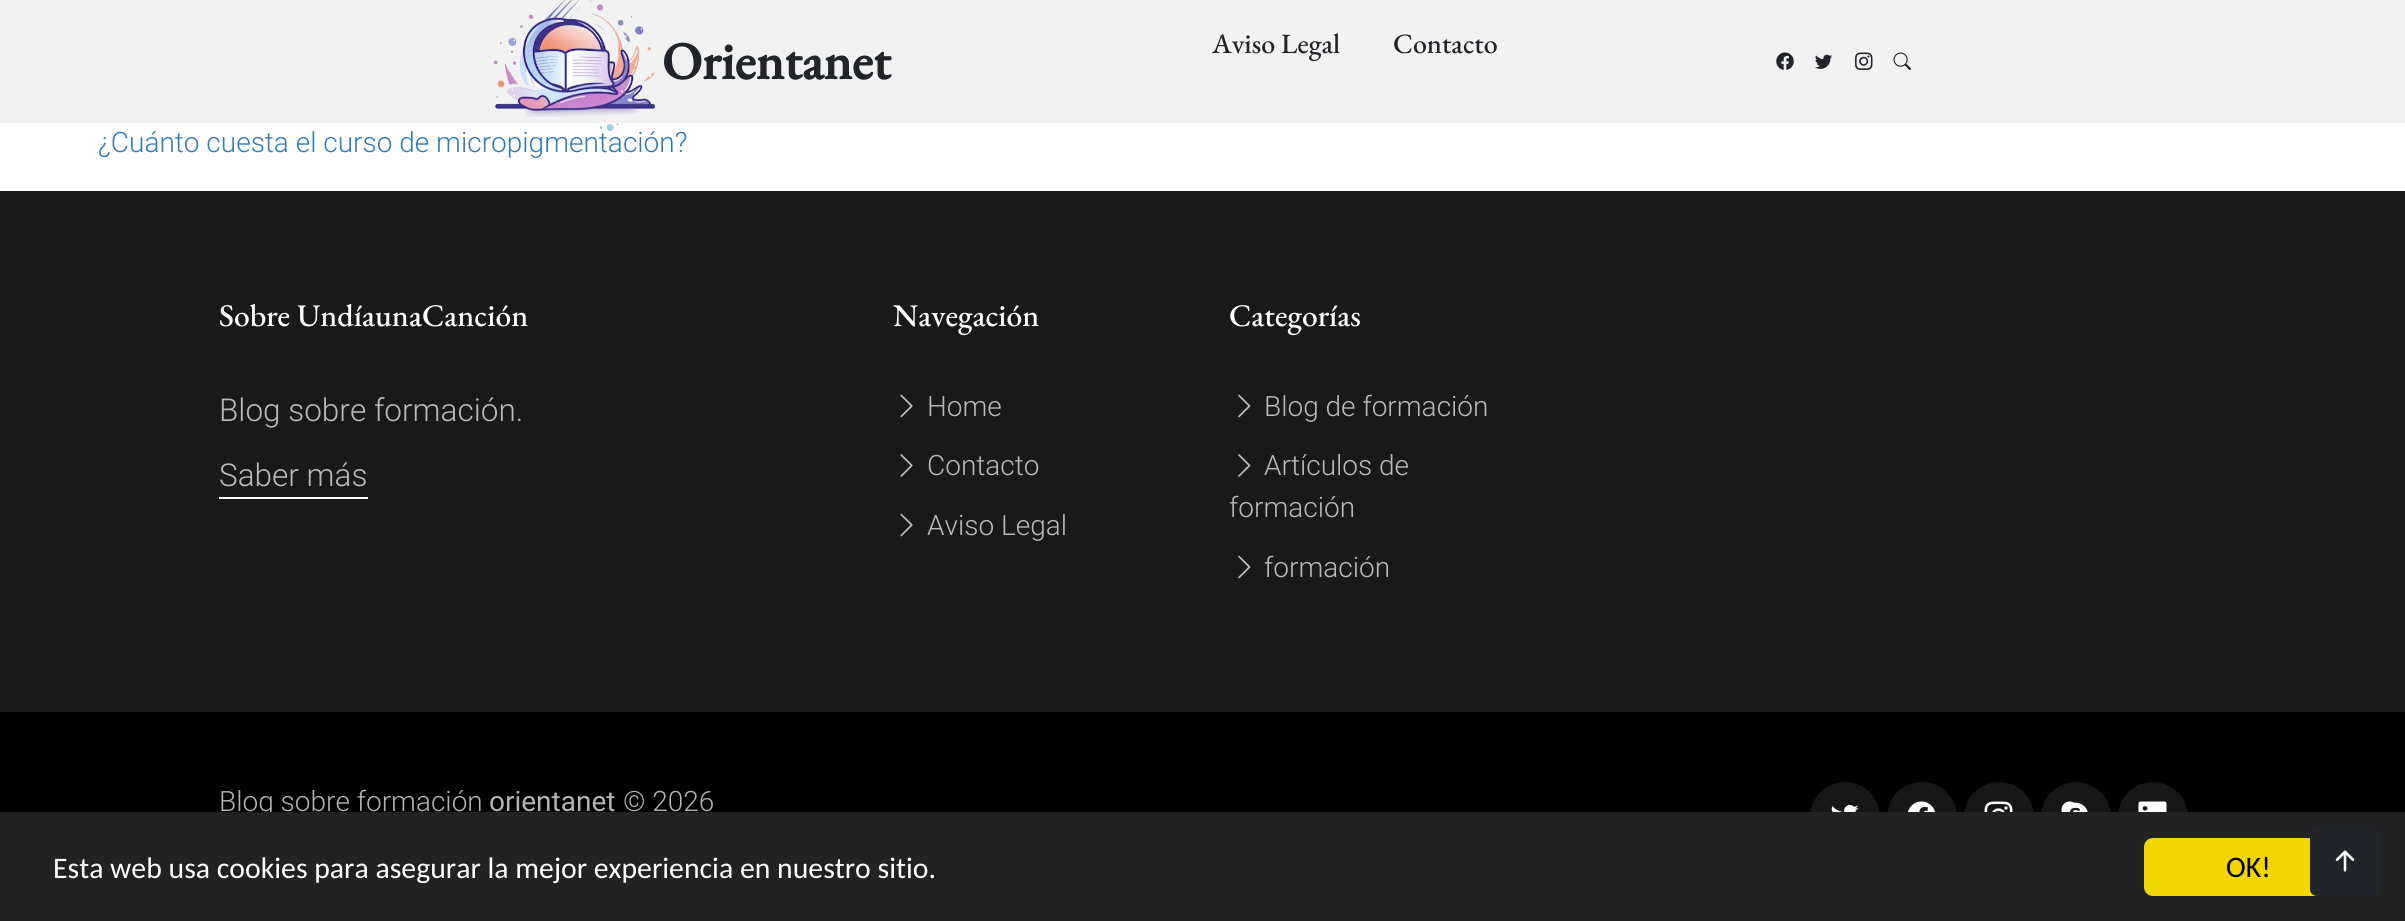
import math
import cairo

surface = cairo.ImageSurface(cairo.FORMAT_RGB24, 2405, 921)
ctx = cairo.Context(surface)
options = cairo.FontOptions()
options.set_hint_metrics(cairo.HINT_METRICS_OFF)
options.set_hint_style(cairo.HINT_STYLE_NONE)
ctx.set_font_options(options)
ctx.set_miter_limit(4)


def set_color(code):
    ctx.set_source_rgb(*(v / 255 for v in bytes.fromhex(code[-6:])))


def draw_text(x, y, s, family, size, color, bold=False, italic=False):
    ctx.select_font_face(family, cairo.FONT_SLANT_ITALIC if italic else cairo.FONT_SLANT_NORMAL, cairo.FONT_WEIGHT_BOLD if bold else cairo.FONT_WEIGHT_NORMAL)
    ctx.set_font_size(size)
    set_color(color)
    ctx.move_to(x, y)
    ctx.show_text(s)


def fill_rect(x, y, w, h, color):
    set_color(color)
    ctx.rectangle(x, y, w, h)
    ctx.fill()


def rounded_rect(x, y, w, h, r):
    ctx.new_sub_path()
    for i, (u, v) in enumerate([(x + w - r, y + h - r), (x + r, y + h - r), (x + r, y + r), (x + w - r, y + r)]):
        ctx.arc(u, v, r, i * math.pi / 2, (i + 1) * math.pi / 2)
    ctx.close_path()


def draw_image(path, x, y, w, h):
    ctx.save()
    ctx.set_source_surface(cairo.ImageSurface.create_from_png(path), x, y)
    ctx.rectangle(x, y, w, h)
    ctx.fill()
    ctx.restore()


set_color("#ffffff")
ctx.paint()
fill_rect(0, 0, 2405, 123, "#f2f2f2")
draw_text(98, 152, "¿Cuánto cuesta el curso de micropigmentación?", "Roboto Light", 28, "#337ab7")
draw_image("assets/img1.png", 493, 0, 162, 132)
draw_text(662, 79, "Orientanet", "EB Garamond", 52.5, "#212529", bold=True)
draw_text(1212, 53, "Aviso Legal", "EB Garamond Medium", 28, "#212529")
draw_text(1393, 53, "Contacto", "EB Garamond Medium", 28, "#212529")
draw_image("assets/img2.png", 1776, 52, 18, 18)
draw_image("assets/img3.png", 1815, 54, 18, 15)
draw_image("assets/img4.png", 1855, 52, 18, 18)
draw_image("assets/img5.png", 1893, 52, 18, 18)
fill_rect(0, 191, 2405, 521, "#191919")
draw_text(219, 326, "Sobre UndíaunaCanción", "EB Garamond Medium", 31.5, "#ffffff")
draw_text(219, 421, "Blog sobre formación.", "Roboto Light", 31.5, "#bababa")
draw_text(219, 486, "Saber más", "Roboto Light", 31.5, "#bababa")
fill_rect(219, 497, 149, 2, "#ffffff")
draw_text(893, 326, "Navegación", "EB Garamond Medium", 31.5, "#ffffff")
draw_image("assets/img6.png", 900, 394, 13, 24)
draw_text(927, 416, "Home", "Roboto Light", 28, "#bababa")
draw_image("assets/img7.png", 900, 454, 13, 23)
draw_text(927, 475, "Contacto", "Roboto Light", 28, "#bababa")
draw_image("assets/img6.png", 900, 513, 13, 24)
draw_text(927, 535, "Aviso Legal", "Roboto Light", 28, "#bababa")
draw_text(1229, 326, "Categorías", "EB Garamond Medium", 31.5, "#ffffff")
draw_image("assets/img8.png", 1238, 394, 13, 24)
draw_text(1264, 416, "Blog de formación", "Roboto Light", 28, "#bababa")
draw_image("assets/img9.png", 1238, 454, 13, 23)
draw_text(1264, 475, "Artículos de", "Roboto Light", 28, "#bababa")
draw_text(1229, 517, "formación", "Roboto Light", 28, "#bababa")
draw_image("assets/img8.png", 1238, 555, 13, 24)
draw_text(1264, 577, "formación", "Roboto Light", 28, "#bababa")
fill_rect(0, 712, 2405, 100, "#000000")
draw_text(219, 811, "Blog sobre formación", "Roboto Light", 28, "#b3b3b3")
draw_text(489, 811, "orientanet", "Roboto", 28, "#b3b3b3")
draw_text(623, 811, "© 2026", "Roboto Light", 28, "#b3b3b3")
set_color("#171717")
ctx.new_path()
ctx.arc(1845, 817, 35, 0, 2 * math.pi)
ctx.fill()
draw_image("assets/img10.png", 1831, 805, 28, 7)
ctx.arc(1922, 817, 35, 0, 2 * math.pi)
ctx.fill()
draw_image("assets/img11.png", 1908, 801, 27, 11)
ctx.arc(1999, 817, 35, 0, 2 * math.pi)
ctx.fill()
draw_image("assets/img12.png", 1984, 801, 29, 11)
ctx.arc(2076, 817, 35, 0, 2 * math.pi)
ctx.fill()
draw_image("assets/img13.png", 2061, 801, 27, 11)
ctx.arc(2153, 817, 35, 0, 2 * math.pi)
ctx.fill()
draw_image("assets/img14.png", 2138, 801, 29, 11)
fill_rect(0, 812, 2405, 109, "#222222")
draw_text(53, 878, "Esta web usa cookies para asegurar la mejor experiencia en nuestro sitio.", "Carlito", 29.75, "#ffffff")
set_color("#f1d600")
rounded_rect(2144, 838, 210, 58, 9)
ctx.fill()
draw_text(2226, 877, "OK!", "Carlito", 29.75, "#000000")
set_color("#212529")
rounded_rect(2310, 826, 70, 70, 7)
ctx.fill()
draw_image("assets/img15.png", 2335, 850, 20, 22)
surface.write_to_png("output.png")
